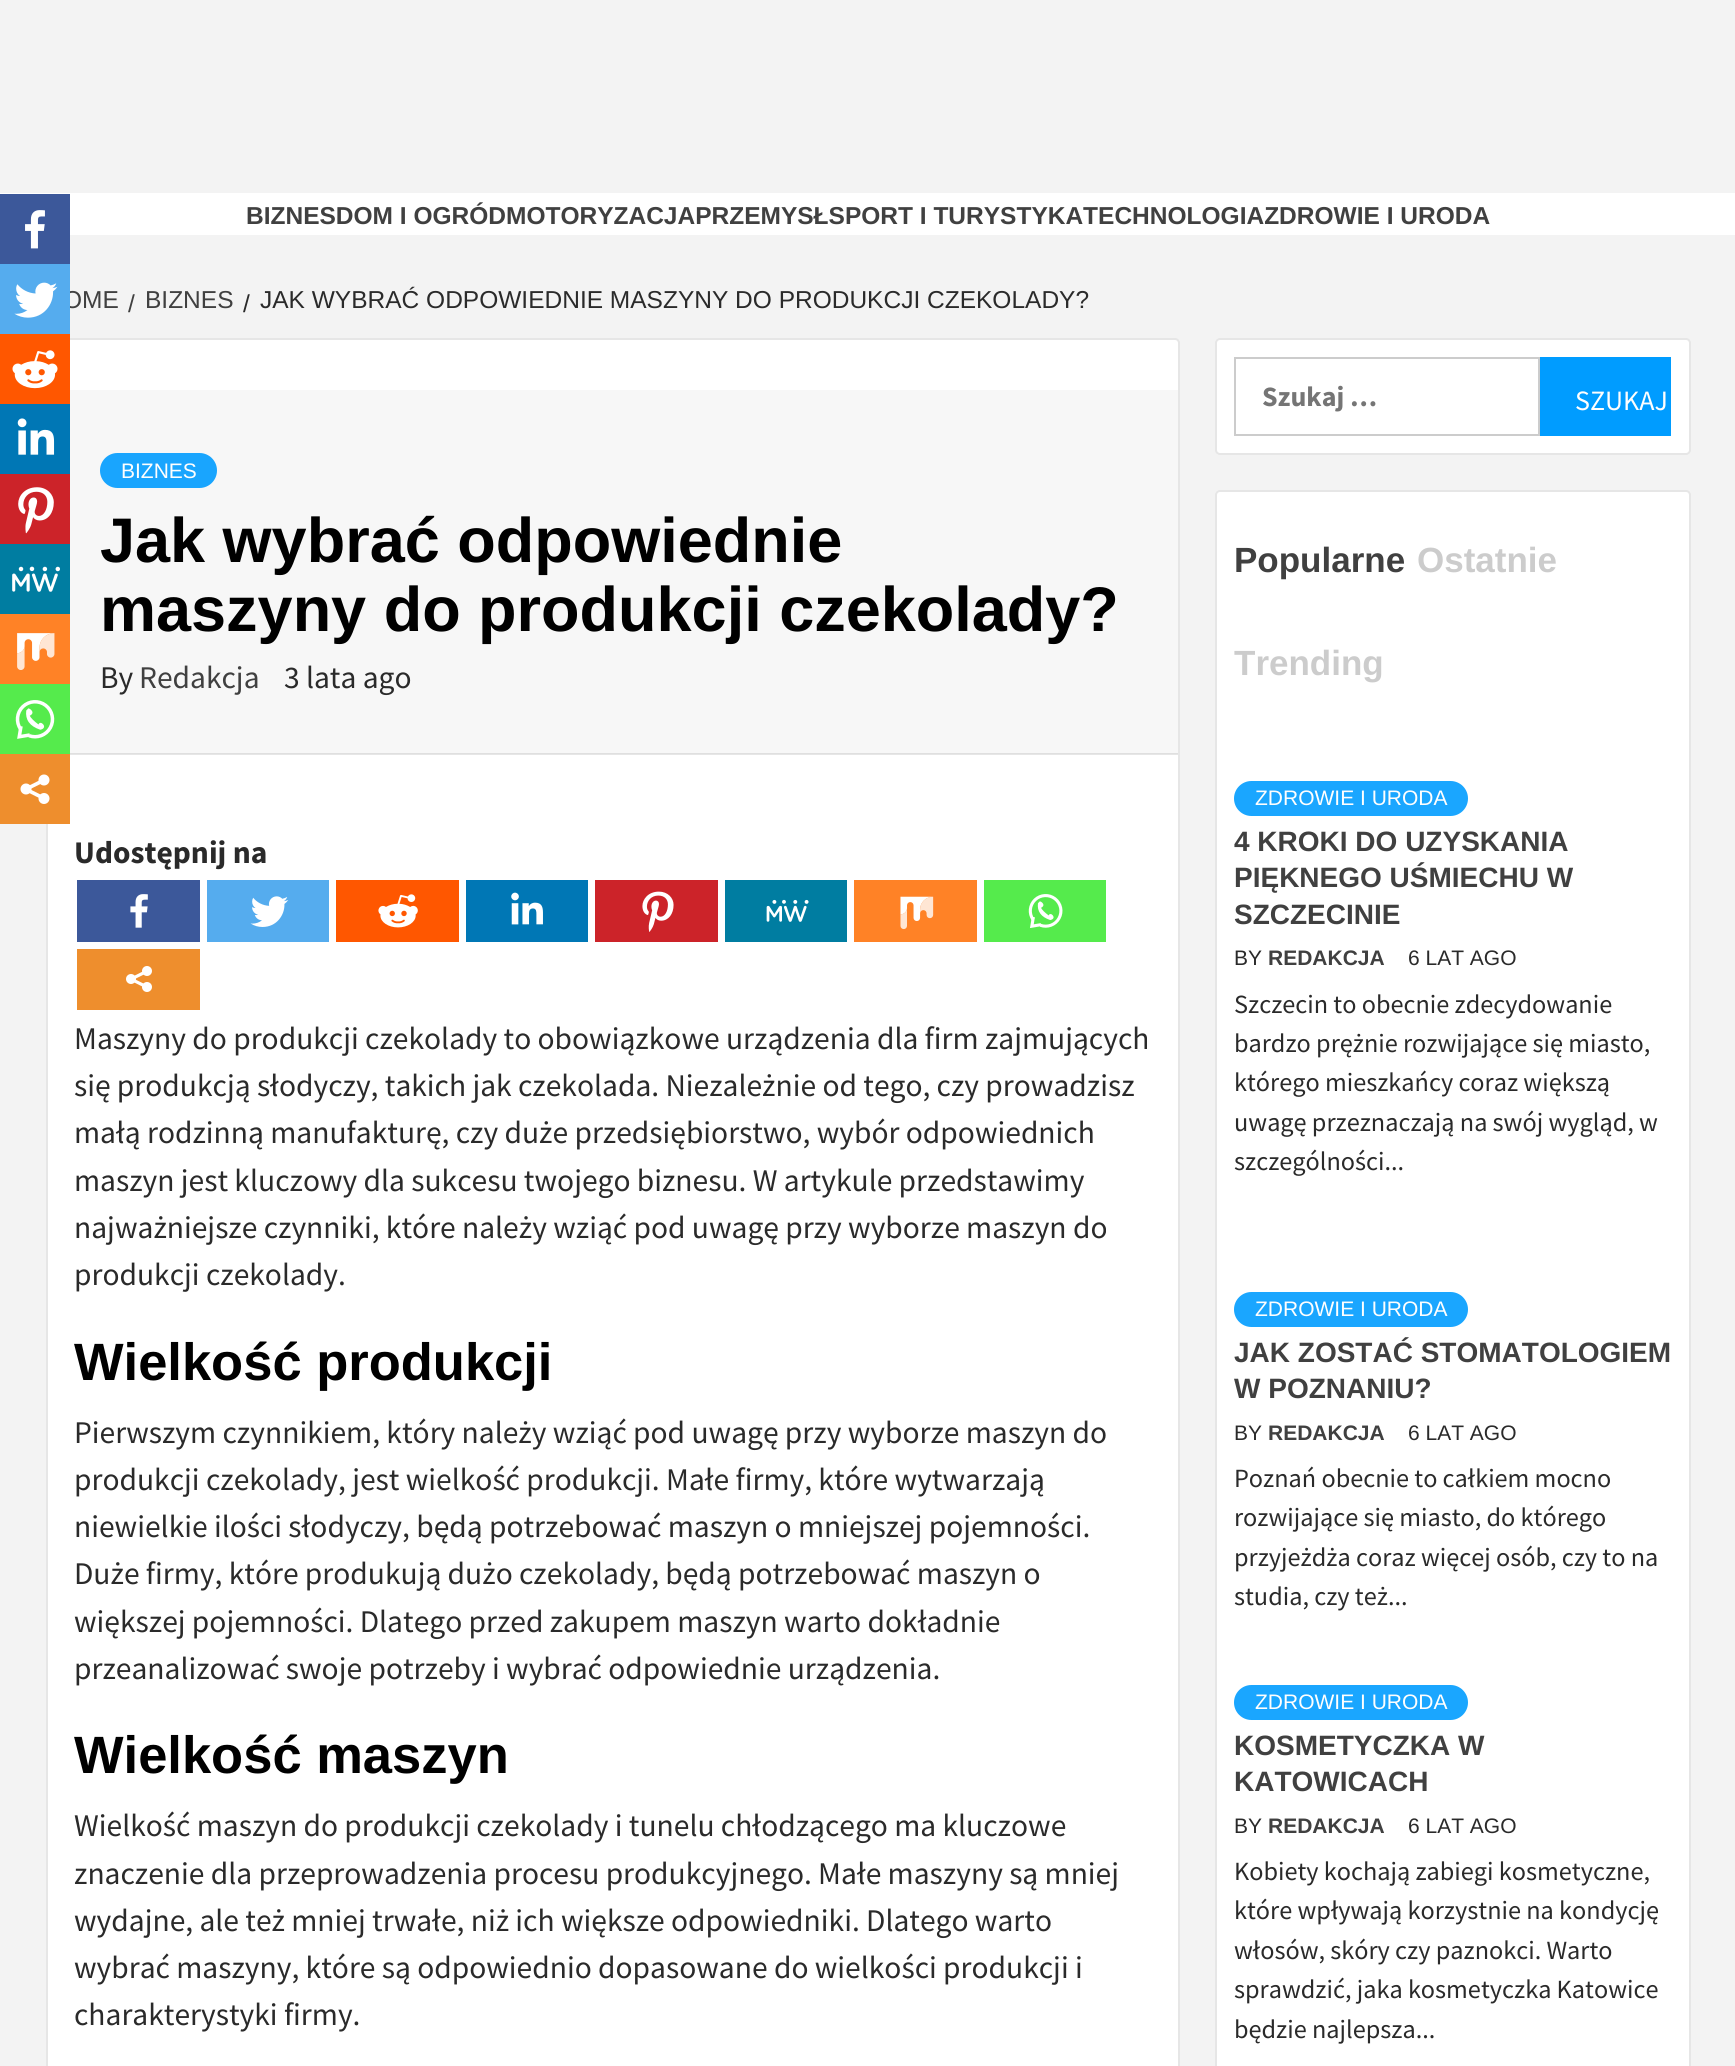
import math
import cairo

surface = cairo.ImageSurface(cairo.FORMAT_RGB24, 1735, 2066)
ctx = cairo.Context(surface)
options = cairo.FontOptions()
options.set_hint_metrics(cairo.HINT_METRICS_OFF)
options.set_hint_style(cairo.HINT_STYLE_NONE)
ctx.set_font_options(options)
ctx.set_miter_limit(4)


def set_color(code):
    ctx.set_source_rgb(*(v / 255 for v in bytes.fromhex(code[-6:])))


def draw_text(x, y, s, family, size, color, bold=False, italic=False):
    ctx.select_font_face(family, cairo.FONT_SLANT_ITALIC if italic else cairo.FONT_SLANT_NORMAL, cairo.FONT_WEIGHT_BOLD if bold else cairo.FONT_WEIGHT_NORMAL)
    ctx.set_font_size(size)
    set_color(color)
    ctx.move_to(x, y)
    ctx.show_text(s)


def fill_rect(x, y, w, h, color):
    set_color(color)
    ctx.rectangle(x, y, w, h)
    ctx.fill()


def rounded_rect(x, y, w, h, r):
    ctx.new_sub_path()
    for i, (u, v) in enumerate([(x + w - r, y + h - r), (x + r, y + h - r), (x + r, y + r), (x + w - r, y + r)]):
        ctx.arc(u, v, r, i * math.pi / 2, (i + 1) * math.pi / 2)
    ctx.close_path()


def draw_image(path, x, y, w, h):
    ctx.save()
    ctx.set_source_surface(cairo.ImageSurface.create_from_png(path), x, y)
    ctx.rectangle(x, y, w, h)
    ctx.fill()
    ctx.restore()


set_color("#f3f3f3")
ctx.paint()
fill_rect(0, 193, 1735, 42, "#ffffff")
draw_text(246, 224, "BIZNESDOM I OGRÓDMOTORYZACJAPRZEMYSŁSPORT I TURYSTYKATECHNOLOGIAZDROWIE I URODA", "Liberation Sans", 24.5, "#404040", bold=True)
draw_text(63, 308, "OME", "Liberation Sans", 24.5, "#404040")
draw_text(128, 312, "/", "Liberation Sans", 24.5, "#404040")
draw_text(145, 308, "BIZNES", "Liberation Sans", 24.5, "#404040")
draw_text(243, 312, "/", "Liberation Sans", 24.5, "#2a2a2a")
draw_text(260, 308, "JAK WYBRAĆ ODPOWIEDNIE MASZYNY DO PRODUKCJI CZEKOLADY?", "Liberation Sans", 24.5, "#2a2a2a")
set_color("#ffffff")
rounded_rect(46, 338, 1134, 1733, 5)
ctx.fill()
rounded_rect(47, 339, 1132, 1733, 4)
ctx.set_source_rgba(0, 0.004, 0.004, 0.1)
ctx.stroke()
fill_rect(70, 390, 1108, 364, "#f7f7f7")
ctx.set_source_rgba(0, 0.004, 0.004, 0.1)
ctx.rectangle(70, 753, 1108, 2)
ctx.fill()
set_color("#19a5fe")
rounded_rect(100, 453, 117, 35, 17.5)
ctx.fill()
draw_text(121, 478, "BIZNES", "Liberation Sans", 21, "#fefefe")
draw_text(100, 562, "Jak wybrać odpowiednie", "Liberation Sans", 63, "#000000", bold=True)
draw_text(100, 631, "maszyny do produkcji czekolady?", "Liberation Sans", 63, "#000000", bold=True)
draw_text(100, 688, "By", "Source Sans Pro", 31.5, "#2a2a2a")
draw_text(139, 688, "Redakcja", "Source Sans Pro", 31.5, "#404040")
draw_text(284, 688, "3 lata ago", "Source Sans Pro", 31.5, "#2a2a2a")
fill_rect(0, 194, 70, 70, "#3c589a")
draw_image("assets/img1.png", 25, 210, 20, 39)
fill_rect(0, 264, 70, 70, "#55acee")
draw_image("assets/img2.png", 14, 282, 44, 36)
fill_rect(0, 334, 70, 70, "#ff5700")
draw_image("assets/img3.png", 12, 350, 46, 39)
fill_rect(0, 404, 70, 70, "#0077b5")
draw_image("assets/img4.png", 17, 418, 38, 37)
fill_rect(0, 474, 70, 70, "#cc2329")
draw_image("assets/img5.png", 18, 487, 36, 47)
fill_rect(0, 544, 70, 70, "#007da1")
draw_image("assets/img6.png", 12, 566, 48, 26)
fill_rect(0, 614, 70, 70, "#ff8226")
draw_image("assets/img7.png", 17, 633, 38, 37)
fill_rect(0, 684, 70, 70, "#55eb4c")
draw_image("assets/img8.png", 15, 700, 40, 39)
fill_rect(0, 754, 70, 70, "#ee8e2d")
draw_image("assets/img9.png", 20, 774, 30, 30)
draw_text(74, 863, "Udostępnij na", "Source Sans Pro", 31.5, "#2a2a2a", bold=True)
fill_rect(77, 880, 123, 62, "#3c589a")
draw_image("assets/img10.png", 130, 894, 18, 34)
fill_rect(207, 880, 122, 62, "#55acee")
draw_image("assets/img11.png", 250, 896, 39, 31)
fill_rect(336, 880, 123, 62, "#ff5700")
draw_image("assets/img12.png", 378, 894, 40, 34)
fill_rect(466, 880, 122, 62, "#0077b5")
draw_image("assets/img13.png", 511, 892, 32, 33)
fill_rect(595, 880, 123, 62, "#cc2329")
draw_image("assets/img14.png", 642, 891, 32, 41)
fill_rect(725, 880, 122, 62, "#007da1")
draw_image("assets/img15.png", 766, 899, 43, 23)
fill_rect(854, 880, 123, 62, "#ff8226")
draw_image("assets/img16.png", 900, 896, 34, 34)
fill_rect(984, 880, 122, 62, "#55eb4c")
draw_image("assets/img17.png", 1028, 894, 35, 34)
fill_rect(77, 949, 123, 61, "#ee8e2d")
draw_image("assets/img18.png", 126, 966, 26, 26)
draw_text(74, 1049, "Maszyny do produkcji czekolady to obowiązkowe urządzenia dla firm zajmujących", "Source Sans Pro", 31.5, "#2a2a2a")
draw_text(74, 1096, "się produkcją słodyczy, takich jak czekolada. Niezależnie od tego, czy prowadzisz", "Source Sans Pro", 31.5, "#2a2a2a")
draw_text(74, 1143, "małą rodzinną manufakturę, czy duże przedsiębiorstwo, wybór odpowiednich", "Source Sans Pro", 31.5, "#2a2a2a")
draw_text(74, 1191, "maszyn jest kluczowy dla sukcesu twojego biznesu. W artykule przedstawimy", "Source Sans Pro", 31.5, "#2a2a2a")
draw_text(74, 1238, "najważniejsze czynniki, które należy wziąć pod uwagę przy wyborze maszyn do", "Source Sans Pro", 31.5, "#2a2a2a")
draw_text(74, 1285, "produkcji czekolady.", "Source Sans Pro", 31.5, "#2a2a2a")
draw_text(74, 1380, "Wielkość produkcji", "Liberation Sans", 52.5, "#000000", bold=True)
draw_text(74, 1443, "Pierwszym czynnikiem, który należy wziąć pod uwagę przy wyborze maszyn do", "Source Sans Pro", 31.5, "#2a2a2a")
draw_text(74, 1490, "produkcji czekolady, jest wielkość produkcji. Małe firmy, które wytwarzają", "Source Sans Pro", 31.5, "#2a2a2a")
draw_text(74, 1537, "niewielkie ilości słodyczy, będą potrzebować maszyn o mniejszej pojemności.", "Source Sans Pro", 31.5, "#2a2a2a")
draw_text(74, 1584, "Duże firmy, które produkują dużo czekolady, będą potrzebować maszyn o", "Source Sans Pro", 31.5, "#2a2a2a")
draw_text(74, 1632, "większej pojemności. Dlatego przed zakupem maszyn warto dokładnie", "Source Sans Pro", 31.5, "#2a2a2a")
draw_text(74, 1679, "przeanalizować swoje potrzeby i wybrać odpowiednie urządzenia.", "Source Sans Pro", 31.5, "#2a2a2a")
draw_text(74, 1773, "Wielkość maszyn", "Liberation Sans", 52.5, "#000000", bold=True)
draw_text(74, 1836, "Wielkość maszyn do produkcji czekolady i tunelu chłodzącego ma kluczowe", "Source Sans Pro", 31.5, "#2a2a2a")
draw_text(74, 1884, "znaczenie dla przeprowadzenia procesu produkcyjnego. Małe maszyny są mniej", "Source Sans Pro", 31.5, "#2a2a2a")
draw_text(74, 1931, "wydajne, ale też mniej trwałe, niż ich większe odpowiedniki. Dlatego warto", "Source Sans Pro", 31.5, "#2a2a2a")
draw_text(74, 1978, "wybrać maszyny, które są odpowiednio dopasowane do wielkości produkcji i", "Source Sans Pro", 31.5, "#2a2a2a")
draw_text(74, 2025, "charakterystyki firmy.", "Source Sans Pro", 31.5, "#2a2a2a")
set_color("#ffffff")
rounded_rect(1215, 338, 476, 117, 5)
ctx.fill()
rounded_rect(1216, 339, 474, 115, 4)
ctx.set_source_rgba(0, 0.004, 0.004, 0.1)
ctx.stroke()
ctx.rectangle(1235, 358, 304, 77)
set_color("#cccccc")
ctx.stroke()
draw_text(1262, 406, "Szukaj …", "Source Sans Pro", 28, "#757575", bold=True)
fill_rect(1540, 357, 131, 79, "#009cff")
draw_text(1575, 410, "SZUKAJ", "Source Sans Pro", 28, "#fefefe")
set_color("#ffffff")
rounded_rect(1215, 490, 476, 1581, 5)
ctx.fill()
rounded_rect(1216, 491, 474, 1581, 4)
ctx.set_source_rgba(0, 0.004, 0.004, 0.1)
ctx.stroke()
draw_text(1234, 572, "Popularne", "Liberation Sans", 35, "#404040", bold=True)
draw_text(1417, 572, "Ostatnie", "Liberation Sans", 35, "#cccccc", bold=True)
draw_text(1234, 675, "Trending", "Liberation Sans", 35, "#cccccc", bold=True)
set_color("#1aa6ff")
rounded_rect(1234, 781, 234, 35, 17.5)
ctx.fill()
draw_text(1255, 805, "ZDROWIE I URODA", "Liberation Sans", 21, "#fefefe")
draw_text(1234, 851, "4 KROKI DO UZYSKANIA", "Liberation Sans", 28, "#404040", bold=True)
draw_text(1234, 887, "PIĘKNEGO UŚMIECHU W", "Liberation Sans", 28, "#404040", bold=True)
draw_text(1234, 924, "SZCZECINIE", "Liberation Sans", 28, "#404040", bold=True)
draw_text(1234, 965, "BY", "Liberation Sans", 21, "#2a2a2a")
draw_text(1268, 965, "REDAKCJA", "Liberation Sans", 21, "#404040", bold=True)
draw_text(1408, 965, "6 LAT AGO", "Liberation Sans", 21, "#2a2a2a")
draw_text(1234, 1013, "Szczecin to obecnie zdecydowanie", "Source Sans Pro", 26.25, "#2a2a2a")
draw_text(1234, 1052, "bardzo prężnie rozwijające się miasto,", "Source Sans Pro", 26.25, "#2a2a2a")
draw_text(1234, 1091, "którego mieszkańcy coraz większą", "Source Sans Pro", 26.25, "#2a2a2a")
draw_text(1234, 1131, "uwagę przeznaczają na swój wygląd, w", "Source Sans Pro", 26.25, "#2a2a2a")
draw_text(1234, 1170, "szczególności...", "Source Sans Pro", 26.25, "#2a2a2a")
set_color("#1aa6ff")
rounded_rect(1234, 1292, 234, 35, 17.5)
ctx.fill()
draw_text(1255, 1316, "ZDROWIE I URODA", "Liberation Sans", 21, "#fefefe")
draw_text(1234, 1362, "JAK ZOSTAĆ STOMATOLOGIEM", "Liberation Sans", 28, "#404040", bold=True)
draw_text(1234, 1398, "W POZNANIU?", "Liberation Sans", 28, "#404040", bold=True)
draw_text(1234, 1440, "BY", "Liberation Sans", 21, "#2a2a2a")
draw_text(1268, 1440, "REDAKCJA", "Liberation Sans", 21, "#404040", bold=True)
draw_text(1408, 1440, "6 LAT AGO", "Liberation Sans", 21, "#2a2a2a")
draw_text(1234, 1487, "Poznań obecnie to całkiem mocno", "Source Sans Pro", 26.25, "#2a2a2a")
draw_text(1234, 1526, "rozwijające się miasto, do którego", "Source Sans Pro", 26.25, "#2a2a2a")
draw_text(1234, 1566, "przyjeżdża coraz więcej osób, czy to na", "Source Sans Pro", 26.25, "#2a2a2a")
draw_text(1234, 1605, "studia, czy też...", "Source Sans Pro", 26.25, "#2a2a2a")
set_color("#1aa6ff")
rounded_rect(1234, 1685, 234, 35, 17.5)
ctx.fill()
draw_text(1255, 1709, "ZDROWIE I URODA", "Liberation Sans", 21, "#fefefe")
draw_text(1234, 1755, "KOSMETYCZKA W", "Liberation Sans", 28, "#404040", bold=True)
draw_text(1234, 1791, "KATOWICACH", "Liberation Sans", 28, "#404040", bold=True)
draw_text(1234, 1833, "BY", "Liberation Sans", 21, "#2a2a2a")
draw_text(1268, 1833, "REDAKCJA", "Liberation Sans", 21, "#404040", bold=True)
draw_text(1408, 1833, "6 LAT AGO", "Liberation Sans", 21, "#2a2a2a")
draw_text(1234, 1880, "Kobiety kochają zabiegi kosmetyczne,", "Source Sans Pro", 26.25, "#2a2a2a")
draw_text(1234, 1919, "które wpływają korzystnie na kondycję", "Source Sans Pro", 26.25, "#2a2a2a")
draw_text(1234, 1959, "włosów, skóry czy paznokci. Warto", "Source Sans Pro", 26.25, "#2a2a2a")
draw_text(1234, 1998, "sprawdzić, jaka kosmetyczka Katowice", "Source Sans Pro", 26.25, "#2a2a2a")
draw_text(1234, 2038, "będzie najlepsza...", "Source Sans Pro", 26.25, "#2a2a2a")
surface.write_to_png("output.png")
